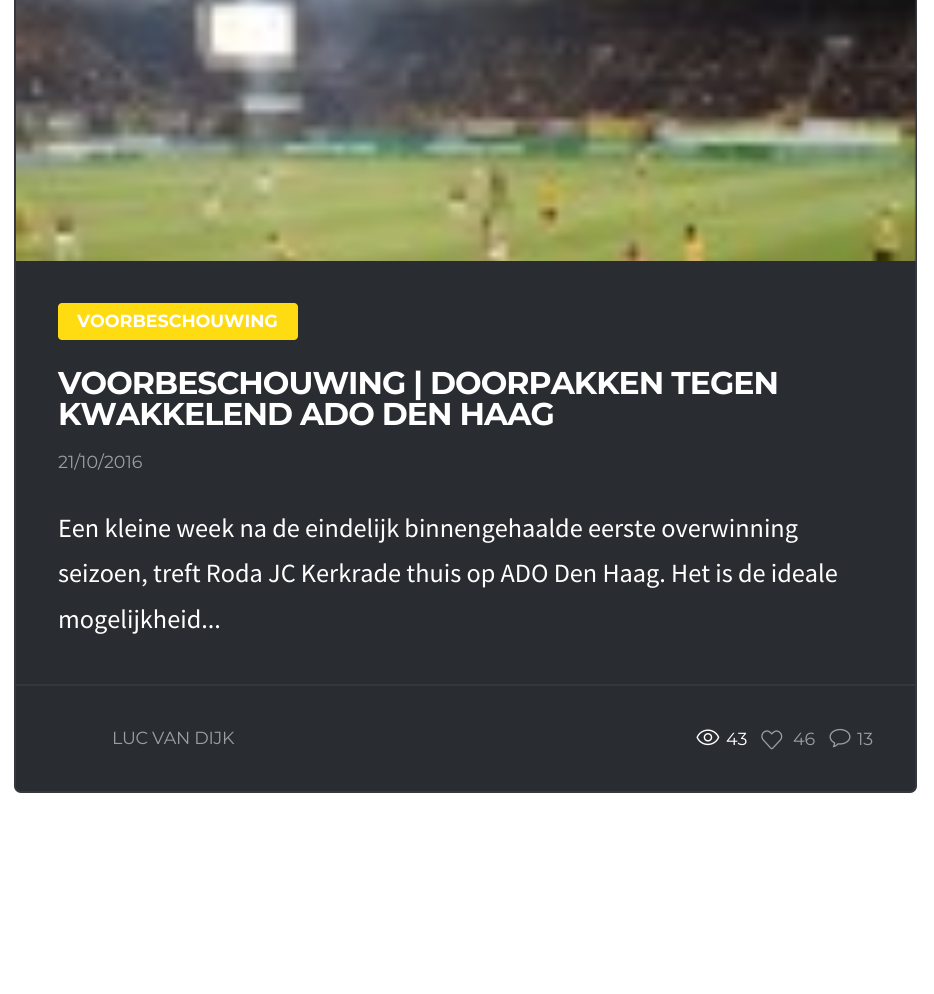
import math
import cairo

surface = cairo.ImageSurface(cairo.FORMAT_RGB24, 934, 994)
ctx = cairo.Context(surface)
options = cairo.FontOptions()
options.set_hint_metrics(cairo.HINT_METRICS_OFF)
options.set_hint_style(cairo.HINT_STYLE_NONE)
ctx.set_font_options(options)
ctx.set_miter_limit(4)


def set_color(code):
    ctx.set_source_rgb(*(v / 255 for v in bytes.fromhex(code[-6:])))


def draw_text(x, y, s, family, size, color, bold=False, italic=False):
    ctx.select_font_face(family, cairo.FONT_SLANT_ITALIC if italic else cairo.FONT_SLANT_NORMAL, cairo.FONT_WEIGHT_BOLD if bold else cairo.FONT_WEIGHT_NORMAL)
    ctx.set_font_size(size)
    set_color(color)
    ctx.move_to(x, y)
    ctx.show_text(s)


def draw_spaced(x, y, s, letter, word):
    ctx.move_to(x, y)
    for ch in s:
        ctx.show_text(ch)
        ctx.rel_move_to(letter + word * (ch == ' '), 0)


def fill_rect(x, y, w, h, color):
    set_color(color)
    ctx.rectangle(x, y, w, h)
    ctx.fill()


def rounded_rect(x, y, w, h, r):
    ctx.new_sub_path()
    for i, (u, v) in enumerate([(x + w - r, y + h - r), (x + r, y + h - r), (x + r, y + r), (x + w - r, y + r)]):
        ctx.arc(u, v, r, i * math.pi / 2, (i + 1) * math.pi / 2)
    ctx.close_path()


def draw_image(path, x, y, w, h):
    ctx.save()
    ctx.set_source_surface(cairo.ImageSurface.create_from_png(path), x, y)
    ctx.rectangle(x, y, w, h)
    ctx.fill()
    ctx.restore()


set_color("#ffffff")
ctx.paint()
set_color("#292c31")
rounded_rect(15, -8, 901, 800, 6)
ctx.fill_preserve()
set_color("#34373c")
ctx.stroke()
draw_image("assets/img1.png", 16, 0, 900, 261)
set_color("#ffdc11")
rounded_rect(58, 303, 240, 37, 4)
ctx.fill()
draw_text(77, 327, "VOORBESCHOUWING", "Montserrat", 17.5, "#ffffff", bold=True)
ctx.set_font_size(31.5)
draw_spaced(58, 394, "VOORBESCHOUWING | DOORPAKKEN TEGEN", -0.95, 0)
draw_spaced(58, 425, "KWAKKELEND ADO DEN HAAG", -0.95, 0)
draw_text(58, 468, "21/10/2016", "Montserrat Thin", 17.5, "#9a9da2")
draw_text(58, 537, "Een kleine week na de eindelijk binnengehaalde eerste overwinning", "Source Sans Pro", 26.25, "#ffffff")
draw_text(58, 582, "seizoen, treft Roda JC Kerkrade thuis op ADO Den Haag. Het is de ideale", "Source Sans Pro", 26.25, "#ffffff")
draw_text(58, 628, "mogelijkheid...", "Source Sans Pro", 26.25, "#ffffff")
fill_rect(16, 684, 899, 2, "#34373c")
ctx.select_font_face("Montserrat Thin")
ctx.set_font_size(17.5)
set_color("#9a9da2")
draw_spaced(112, 744, "LUC VAN DIJK", -0.3, 0)
draw_image("assets/img2.png", 696, 729, 24, 17)
draw_text(726, 745, "43", "Montserrat Thin", 17.5, "#ffffff")
draw_image("assets/img3.png", 761, 730, 22, 20)
draw_text(793, 745, "46", "Montserrat Thin", 17.5, "#9a9da2")
draw_image("assets/img4.png", 829, 728, 22, 20)
draw_text(857, 745, "13", "Montserrat Thin", 17.5, "#9a9da2")
surface.write_to_png("output.png")
